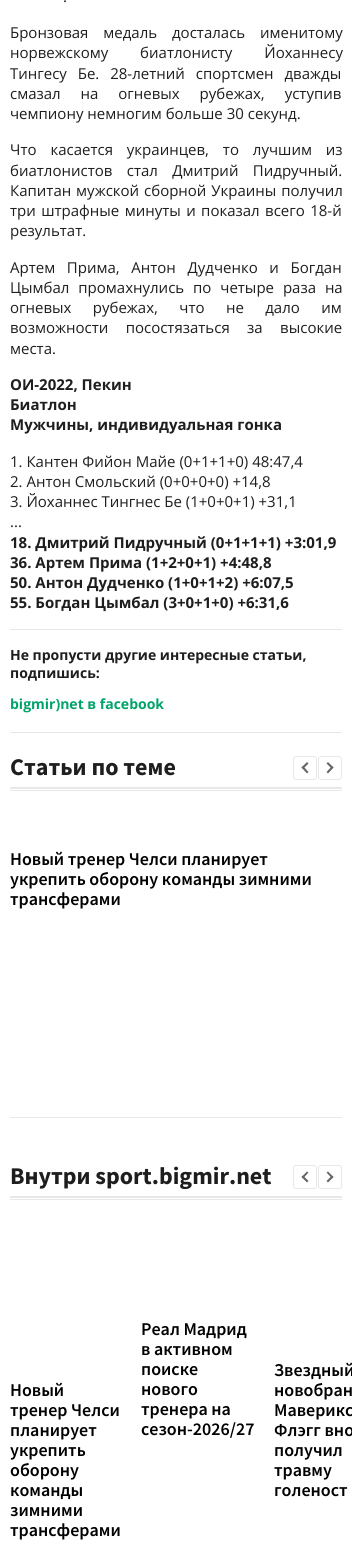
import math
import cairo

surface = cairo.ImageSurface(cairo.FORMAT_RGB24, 352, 1566)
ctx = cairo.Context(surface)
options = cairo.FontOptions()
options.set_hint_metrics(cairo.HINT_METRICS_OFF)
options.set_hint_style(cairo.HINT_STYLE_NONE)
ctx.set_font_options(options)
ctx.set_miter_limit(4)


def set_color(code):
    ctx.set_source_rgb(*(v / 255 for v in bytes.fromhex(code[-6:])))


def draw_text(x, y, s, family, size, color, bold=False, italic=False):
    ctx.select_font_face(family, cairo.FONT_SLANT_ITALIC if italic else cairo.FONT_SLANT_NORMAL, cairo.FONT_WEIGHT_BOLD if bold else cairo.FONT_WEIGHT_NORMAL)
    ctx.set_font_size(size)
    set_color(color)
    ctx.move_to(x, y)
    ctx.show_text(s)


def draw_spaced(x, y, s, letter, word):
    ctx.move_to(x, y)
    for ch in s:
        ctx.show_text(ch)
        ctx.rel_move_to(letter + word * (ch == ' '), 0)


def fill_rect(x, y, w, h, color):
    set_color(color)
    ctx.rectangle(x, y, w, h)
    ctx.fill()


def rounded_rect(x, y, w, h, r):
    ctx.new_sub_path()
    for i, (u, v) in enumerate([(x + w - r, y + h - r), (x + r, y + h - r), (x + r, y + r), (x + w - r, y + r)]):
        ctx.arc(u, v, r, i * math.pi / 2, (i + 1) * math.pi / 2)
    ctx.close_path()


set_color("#ffffff")
ctx.paint()
fill_rect(10, 732, 332, 1, "#e6e6e6")
draw_text(63, 2, ".", "Open Sans", 15, "#1e1e1e")
draw_spaced(10, 38, "Бронзовая медаль досталась именитому", 0, 11)
draw_spaced(10, 58, "норвежскому биатлонисту Йоханнесу", 0, 28)
draw_spaced(10, 79, "Тингесу Бе. 28-летний спортсмен дважды", 0, 7)
draw_spaced(10, 99, "смазал на огневых рубежах, уступив", 0, 16)
draw_text(10, 119, "чемпиону немногим больше 30 секунд.", "Open Sans", 15, "#1e1e1e")
draw_spaced(10, 155, "Что касается украинцев, то лучшим из", 0, 10)
draw_spaced(10, 176, "биатлонистов стал Дмитрий Пидручный.", 0, 10.5)
draw_spaced(10, 196, "Капитан мужской сборной Украины получил", 0, 1)
draw_spaced(10, 216, "три штрафные минуты и показал всего 18-й", 0, 1.5)
draw_text(10, 236, "результат.", "Open Sans", 15, "#1e1e1e")
draw_spaced(10, 273, "Артем Прима, Антон Дудченко и Богдан", 0, 7.75)
draw_spaced(10, 293, "Цымбал промахнулись по четыре раза на", 0, 5)
draw_spaced(10, 313, "огневых рубежах, что не дало им", 0, 17.5)
draw_spaced(10, 333, "возможности посостязаться за высокие", 0, 13.5)
draw_text(10, 354, "места.", "Open Sans", 15, "#1e1e1e")
draw_text(10, 390, "ОИ-2022, Пекин", "Open Sans", 15, "#1e1e1e", bold=True)
draw_text(10, 410, "Биатлон", "Open Sans", 15, "#1e1e1e", bold=True)
draw_text(10, 430, "Мужчины, индивидуальная гонка", "Open Sans", 15, "#1e1e1e", bold=True)
draw_text(10, 467, "1. Кантен Фийон Майе (0+1+1+0) 48:47,4", "Open Sans", 15, "#1e1e1e")
draw_text(10, 487, "2. Антон Смольский (0+0+0+0) +14,8", "Open Sans", 15, "#1e1e1e")
draw_text(10, 507, "3. Йоханнес Тингнес Бе (1+0+0+1) +31,1", "Open Sans", 15, "#1e1e1e")
draw_text(10, 527, "...", "Open Sans", 15, "#1e1e1e")
draw_text(10, 548, "18. Дмитрий Пидручный (0+1+1+1) +3:01,9", "Open Sans", 15, "#1e1e1e", bold=True)
draw_text(10, 568, "36. Артем Прима (1+2+0+1) +4:48,8", "Open Sans", 15, "#1e1e1e", bold=True)
draw_text(10, 588, "50. Антон Дудченко (1+0+1+2) +6:07,5", "Open Sans", 15, "#1e1e1e", bold=True)
draw_text(10, 608, "55. Богдан Цымбал (3+0+1+0) +6:31,6", "Open Sans", 15, "#1e1e1e", bold=True)
fill_rect(10, 629, 332, 1, "#e6e6e6")
draw_text(10, 660, "Не пропусти другие интересные статьи,", "Open Sans", 14, "#1e1e1e", bold=True)
draw_text(10, 678, "подпишись:", "Open Sans", 14, "#1e1e1e", bold=True)
draw_text(10, 709, "bigmir)net в facebook", "Open Sans", 14, "#01a369", bold=True)
fill_rect(10, 790, 332, 1, "#eae7e7")
draw_text(10, 775, "Статьи по теме", "Source Sans Pro", 24, "#1e1e1e", bold=True)
rounded_rect(293.5, 756.5, 23, 23, 2.5)
set_color("#eae7e7")
ctx.set_line_width(1)
ctx.stroke()
set_color("#666666")
ctx.new_path()
ctx.move_to(308.5, 772)
ctx.line_to(307, 773.5)
ctx.line_to(301.5, 767.5)
ctx.line_to(303, 766)
ctx.close_path()
ctx.fill()
ctx.new_path()
ctx.move_to(308.5, 763.5)
ctx.line_to(303, 769)
ctx.line_to(301.5, 767.5)
ctx.line_to(307, 762)
ctx.close_path()
ctx.fill()
rounded_rect(318.5, 756.5, 23, 23, 2.5)
set_color("#eae7e7")
ctx.stroke()
set_color("#666666")
ctx.new_path()
ctx.move_to(326.5, 763.5)
ctx.line_to(328, 762)
ctx.line_to(333.5, 767.5)
ctx.line_to(332, 769)
ctx.close_path()
ctx.fill()
ctx.new_path()
ctx.move_to(326.5, 772)
ctx.line_to(332, 766)
ctx.line_to(333.5, 767.5)
ctx.line_to(328, 773.5)
ctx.close_path()
ctx.fill()
fill_rect(10, 787, 332, 2, "#eae7e7")
fill_rect(10, 1117, 332, 1, "#eae7e7")
draw_text(10, 865, "Новый тренер Челси планирует", "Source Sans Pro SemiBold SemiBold", 18, "#000000")
draw_text(10, 885, "укрепить оборону команды зимними", "Source Sans Pro SemiBold SemiBold", 18, "#000000")
draw_text(10, 905, "трансферами", "Source Sans Pro SemiBold SemiBold", 18, "#000000")
fill_rect(10, 1199, 332, 1, "#eae7e7")
draw_text(10, 1184, "Внутри sport.bigmir.net", "Source Sans Pro", 24, "#1e1e1e", bold=True)
rounded_rect(293.5, 1165.5, 23, 23, 2.5)
set_color("#eae7e7")
ctx.stroke()
set_color("#666666")
ctx.new_path()
ctx.move_to(308.5, 1181)
ctx.line_to(307, 1182.5)
ctx.line_to(301.5, 1177)
ctx.line_to(303, 1175.5)
ctx.close_path()
ctx.fill()
ctx.new_path()
ctx.move_to(308.5, 1172.5)
ctx.line_to(303, 1178.5)
ctx.line_to(301.5, 1177)
ctx.line_to(307, 1171.5)
ctx.close_path()
ctx.fill()
rounded_rect(318.5, 1165.5, 23, 23, 2.5)
set_color("#eae7e7")
ctx.stroke()
set_color("#666666")
ctx.new_path()
ctx.move_to(326.5, 1172.5)
ctx.line_to(328, 1171.5)
ctx.line_to(333.5, 1177)
ctx.line_to(332, 1178.5)
ctx.close_path()
ctx.fill()
ctx.new_path()
ctx.move_to(326.5, 1181)
ctx.line_to(332, 1175.5)
ctx.line_to(333.5, 1177)
ctx.line_to(328, 1182.5)
ctx.close_path()
ctx.fill()
fill_rect(10, 1196, 332, 2, "#eae7e7")
draw_text(10, 1396, "Новый", "Source Sans Pro SemiBold SemiBold", 18, "#000000")
draw_text(10, 1416, "тренер Челси", "Source Sans Pro SemiBold SemiBold", 18, "#000000")
draw_text(10, 1436, "планирует", "Source Sans Pro SemiBold SemiBold", 18, "#000000")
draw_text(10, 1456, "укрепить", "Source Sans Pro SemiBold SemiBold", 18, "#000000")
draw_text(10, 1476, "оборону", "Source Sans Pro SemiBold SemiBold", 18, "#000000")
draw_text(10, 1496, "команды", "Source Sans Pro SemiBold SemiBold", 18, "#000000")
draw_text(10, 1516, "зимними", "Source Sans Pro SemiBold SemiBold", 18, "#000000")
draw_text(10, 1536, "трансферами", "Source Sans Pro SemiBold SemiBold", 18, "#000000")
draw_text(141, 1335, "Реал Мадрид", "Source Sans Pro SemiBold SemiBold", 18, "#000000")
draw_text(141, 1355, "в активном", "Source Sans Pro SemiBold SemiBold", 18, "#000000")
draw_text(141, 1375, "поиске", "Source Sans Pro SemiBold SemiBold", 18, "#000000")
draw_text(141, 1395, "нового", "Source Sans Pro SemiBold SemiBold", 18, "#000000")
draw_text(141, 1415, "тренера на", "Source Sans Pro SemiBold SemiBold", 18, "#000000")
draw_text(141, 1435, "сезон-2026/27", "Source Sans Pro SemiBold SemiBold", 18, "#000000")
draw_text(274, 1376, "Звездный", "Source Sans Pro SemiBold SemiBold", 18, "#000000")
draw_text(274, 1396, "новобран", "Source Sans Pro SemiBold SemiBold", 18, "#000000")
draw_text(274, 1416, "Маверикс", "Source Sans Pro SemiBold SemiBold", 18, "#000000")
draw_text(274, 1436, "Флэгг вно", "Source Sans Pro SemiBold SemiBold", 18, "#000000")
draw_text(274, 1456, "получил", "Source Sans Pro SemiBold SemiBold", 18, "#000000")
draw_text(274, 1476, "травму", "Source Sans Pro SemiBold SemiBold", 18, "#000000")
draw_text(274, 1496, "голеност", "Source Sans Pro SemiBold SemiBold", 18, "#000000")
surface.write_to_png("output.png")
